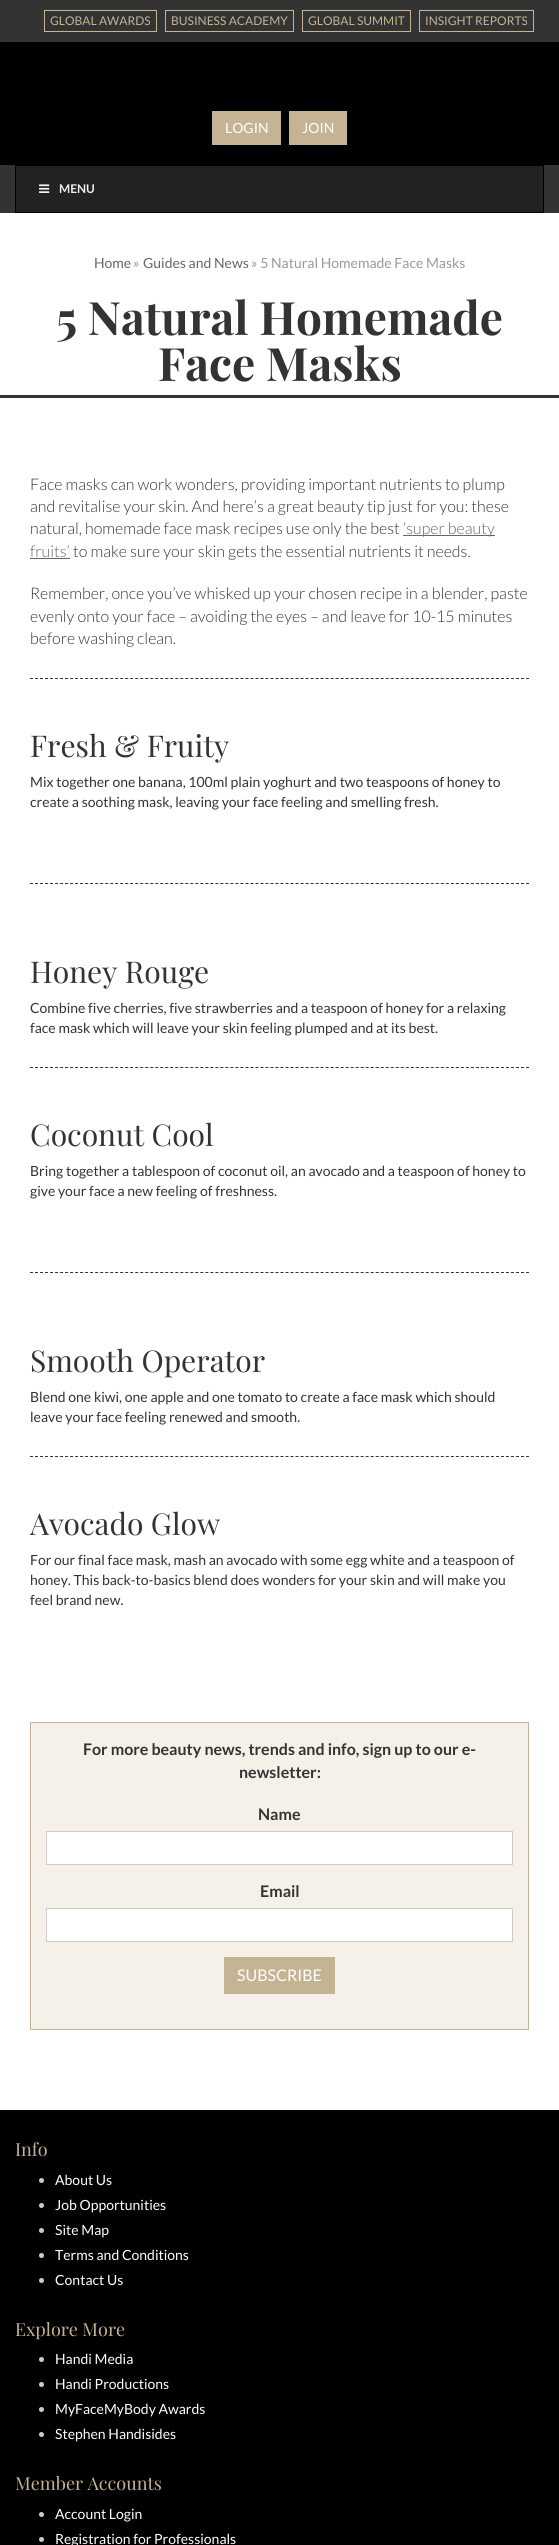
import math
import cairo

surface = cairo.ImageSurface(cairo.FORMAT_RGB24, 559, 2545)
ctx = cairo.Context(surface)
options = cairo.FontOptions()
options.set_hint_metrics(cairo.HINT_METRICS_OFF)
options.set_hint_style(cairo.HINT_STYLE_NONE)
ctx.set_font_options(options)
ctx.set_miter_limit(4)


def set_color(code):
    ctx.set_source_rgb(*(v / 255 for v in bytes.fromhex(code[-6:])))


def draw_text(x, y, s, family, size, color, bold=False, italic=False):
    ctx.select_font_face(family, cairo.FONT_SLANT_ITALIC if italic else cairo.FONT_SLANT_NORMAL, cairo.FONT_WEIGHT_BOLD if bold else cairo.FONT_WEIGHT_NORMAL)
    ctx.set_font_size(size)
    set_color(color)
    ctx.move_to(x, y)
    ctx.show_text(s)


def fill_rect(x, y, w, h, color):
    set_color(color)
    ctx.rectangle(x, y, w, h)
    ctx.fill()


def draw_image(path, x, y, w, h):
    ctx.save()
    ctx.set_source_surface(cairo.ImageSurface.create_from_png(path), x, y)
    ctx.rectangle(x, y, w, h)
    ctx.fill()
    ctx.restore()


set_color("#000000")
ctx.paint()
fill_rect(0, 0, 559, 42, "#333333")
ctx.rectangle(44.5, 10.5, 112, 21)
set_color("#c4b493")
ctx.set_line_width(1)
ctx.stroke()
draw_text(50, 25, "GLOBAL AWARDS", "Lato", 12, "#c4b493")
ctx.rectangle(165.5, 10.5, 128, 21)
ctx.stroke()
draw_text(171, 25, "BUSINESS ACADEMY", "Lato", 12, "#c4b493")
ctx.rectangle(302.5, 10.5, 108, 21)
ctx.stroke()
draw_text(308, 25, "GLOBAL SUMMIT", "Lato", 12, "#c4b493")
ctx.rectangle(419.5, 10.5, 114, 21)
ctx.stroke()
draw_text(425, 25, "INSIGHT REPORTS", "Lato", 12, "#c4b493")
fill_rect(212, 111, 69, 34, "#c4b493")
draw_text(225, 133, "LOGIN", "Lato", 14, "#ffffff")
fill_rect(289, 111, 58, 34, "#c4b493")
draw_text(302, 133, "JOIN", "Lato", 14, "#ffffff")
fill_rect(0, 165, 559, 48, "#333333")
set_color("#222222")
ctx.rectangle(15.5, 165.5, 528, 47)
ctx.fill_preserve()
set_color("#000000")
ctx.stroke()
draw_image("assets/img1.png", 39, 184, 11, 9)
draw_text(59, 193, "MENU", "Lato", 12, "#eeeeee", bold=True)
fill_rect(0, 213, 559, 1897, "#ffffff")
fill_rect(0, 395, 559, 3, "#333333")
draw_text(94, 268, "Home", "Lato", 14, "#666666")
draw_text(133, 268, "»", "Lato", 14, "#999999")
draw_text(143, 268, "Guides and News", "Lato", 14, "#666666")
draw_text(251, 268, "» 5 Natural Homemade Face Masks", "Lato", 14, "#999999")
draw_text(56, 335, "5 Natural Homemade", "Playfair Display", 46, "#333333", bold=True)
draw_text(158, 381, "Face Masks", "Playfair Display", 46, "#333333", bold=True)
draw_text(30, 490, "Face masks can work wonders, providing important nutrients to plump", "Lato Light", 16, "#333333")
draw_text(30, 512, "and revitalise your skin. And here’s a great beauty tip just for you: these", "Lato Light", 16, "#333333")
draw_text(30, 534, "natural, homemade face mask recipes use only the best", "Lato Light", 16, "#333333")
fill_rect(403, 535, 92, 1, "#666666")
draw_text(403, 534, "‘super beauty", "Lato Light", 16, "#666666")
draw_text(30, 557, "fruits’", "Lato Light", 16, "#666666")
fill_rect(30, 558, 40, 1, "#666666")
draw_text(73, 557, "to make sure your skin gets the essential nutrients it needs.", "Lato Light", 16, "#333333")
draw_text(30, 599, "Remember, once you’ve whisked up your chosen recipe in a blender, paste", "Lato Light", 16, "#333333")
draw_text(30, 622, "evenly onto your face – avoiding the eyes – and leave for 10-15 minutes", "Lato Light", 16, "#333333")
draw_text(30, 644, "before washing clean.", "Lato Light", 16, "#333333")
ctx.new_path()
ctx.move_to(30, 678.5)
ctx.line_to(529, 678.5)
ctx.set_dash([3, 2.01])
ctx.stroke()
draw_text(30, 757, "Fresh & Fruity", "Playfair Display", 30, "#333333")
draw_text(30, 787, "Mix together one banana, 100ml plain yoghurt and two teaspoons of honey to", "Lato", 14, "#333333")
draw_text(30, 807, "create a soothing mask, leaving your face feeling and smelling fresh.", "Lato", 14, "#333333")
ctx.new_path()
ctx.move_to(30, 883.5)
ctx.line_to(529, 883.5)
ctx.stroke()
draw_text(30, 983, "Honey Rouge", "Playfair Display", 30, "#333333")
draw_text(30, 1013, "Combine five cherries, five strawberries and a teaspoon of honey for a relaxing", "Lato", 14, "#333333")
draw_text(30, 1033, "face mask which will leave your skin feeling plumped and at its best.", "Lato", 14, "#333333")
ctx.new_path()
ctx.move_to(30, 1067.5)
ctx.line_to(529, 1067.5)
ctx.stroke()
draw_text(30, 1146, "Coconut Cool", "Playfair Display", 30, "#333333")
draw_text(30, 1176, "Bring together a tablespoon of coconut oil, an avocado and a teaspoon of honey to", "Lato", 14, "#333333")
draw_text(30, 1196, "give your face a new feeling of freshness.", "Lato", 14, "#333333")
ctx.new_path()
ctx.move_to(30, 1272.5)
ctx.line_to(529, 1272.5)
ctx.stroke()
draw_text(30, 1372, "Smooth Operator", "Playfair Display", 30, "#333333")
draw_text(30, 1402, "Blend one kiwi, one apple and one tomato to create a face mask which should", "Lato", 14, "#333333")
draw_text(30, 1422, "leave your face feeling renewed and smooth.", "Lato", 14, "#333333")
ctx.new_path()
ctx.move_to(30, 1456.5)
ctx.line_to(529, 1456.5)
ctx.stroke()
draw_text(30, 1535, "Avocado Glow", "Playfair Display", 30, "#333333")
draw_text(30, 1565, "For our final face mask, mash an avocado with some egg white and a teaspoon of", "Lato", 14, "#333333")
draw_text(30, 1585, "honey. This back-to-basics blend does wonders for your skin and will make you", "Lato", 14, "#333333")
draw_text(30, 1605, "feel brand new.", "Lato", 14, "#333333")
ctx.rectangle(30.5, 1722.5, 498, 307)
set_color("#c4b493")
ctx.set_dash([])
ctx.stroke()
fill_rect(31, 1723, 497, 306, "#f5f1e8")
draw_text(83, 1755, "For more beauty news, trends and info, sign up to our e-", "Lato", 16, "#333333", bold=True)
draw_text(239, 1778, "newsletter:", "Lato", 16, "#333333", bold=True)
draw_text(258, 1820, "Name", "Lato", 16, "#333333", bold=True)
set_color("#ffffff")
ctx.rectangle(46.5, 1831.5, 466, 33)
ctx.fill_preserve()
set_color("#cccccc")
ctx.stroke()
draw_text(260, 1897, "Email", "Lato", 16, "#333333", bold=True)
set_color("#ffffff")
ctx.rectangle(46.5, 1908.5, 466, 33)
ctx.fill_preserve()
set_color("#cccccc")
ctx.stroke()
fill_rect(224, 1957, 111, 37, "#c4b493")
draw_text(237, 1981, "SUBSCRIBE", "Lato", 16, "#ffffff")
draw_text(15, 2156, "Info", "Playfair Display", 18, "#c4b493")
set_color("#cccccc")
ctx.new_path()
ctx.arc(41.5, 2180.5, 2.5, 0, 2 * math.pi)
ctx.fill()
draw_text(55, 2185, "About Us", "Lato", 14, "#ffffff")
set_color("#cccccc")
ctx.new_path()
ctx.arc(41.5, 2205.5, 2.5, 0, 2 * math.pi)
ctx.fill()
draw_text(55, 2210, "Job Opportunities", "Lato", 14, "#ffffff")
set_color("#cccccc")
ctx.new_path()
ctx.arc(41.5, 2230.5, 2.5, 0, 2 * math.pi)
ctx.fill()
draw_text(55, 2235, "Site Map", "Lato", 14, "#ffffff")
set_color("#cccccc")
ctx.new_path()
ctx.arc(41.5, 2255.5, 2.5, 0, 2 * math.pi)
ctx.fill()
draw_text(55, 2260, "Terms and Conditions", "Lato", 14, "#ffffff")
set_color("#cccccc")
ctx.new_path()
ctx.arc(41.5, 2280.5, 2.5, 0, 2 * math.pi)
ctx.fill()
draw_text(55, 2285, "Contact Us", "Lato", 14, "#ffffff")
draw_text(15, 2336, "Explore More", "Playfair Display", 18, "#c4b493")
set_color("#cccccc")
ctx.new_path()
ctx.arc(41.5, 2359.5, 2.5, 0, 2 * math.pi)
ctx.fill()
draw_text(55, 2364, "Handi Media", "Lato", 14, "#ffffff")
set_color("#cccccc")
ctx.new_path()
ctx.arc(41.5, 2384.5, 2.5, 0, 2 * math.pi)
ctx.fill()
draw_text(55, 2389, "Handi Productions", "Lato", 14, "#ffffff")
set_color("#cccccc")
ctx.new_path()
ctx.arc(41.5, 2409.5, 2.5, 0, 2 * math.pi)
ctx.fill()
draw_text(55, 2414, "MyFaceMyBody Awards", "Lato", 14, "#ffffff")
set_color("#cccccc")
ctx.new_path()
ctx.arc(41.5, 2434.5, 2.5, 0, 2 * math.pi)
ctx.fill()
draw_text(55, 2439, "Stephen Handisides", "Lato", 14, "#ffffff")
draw_text(15, 2490, "Member Accounts", "Playfair Display", 18, "#c4b493")
set_color("#cccccc")
ctx.new_path()
ctx.arc(41.5, 2514.5, 2.5, 0, 2 * math.pi)
ctx.fill()
draw_text(55, 2519, "Account Login", "Lato", 14, "#ffffff")
set_color("#cccccc")
ctx.new_path()
ctx.arc(41.5, 2539.5, 2.5, 0, 2 * math.pi)
ctx.fill()
draw_text(55, 2544, "Registration for Professionals", "Lato", 14, "#ffffff")
surface.write_to_png("output.png")
